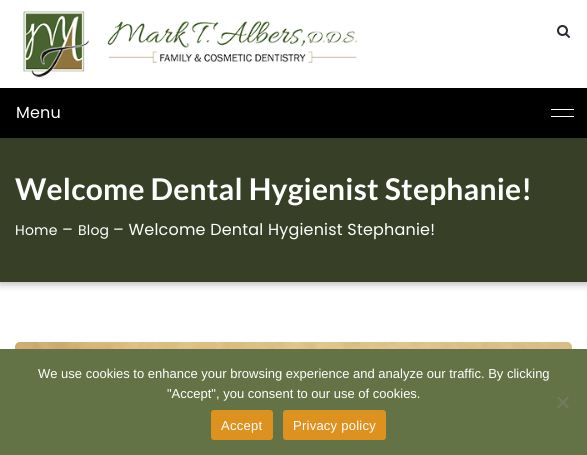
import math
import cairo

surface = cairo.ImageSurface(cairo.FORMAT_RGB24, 587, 455)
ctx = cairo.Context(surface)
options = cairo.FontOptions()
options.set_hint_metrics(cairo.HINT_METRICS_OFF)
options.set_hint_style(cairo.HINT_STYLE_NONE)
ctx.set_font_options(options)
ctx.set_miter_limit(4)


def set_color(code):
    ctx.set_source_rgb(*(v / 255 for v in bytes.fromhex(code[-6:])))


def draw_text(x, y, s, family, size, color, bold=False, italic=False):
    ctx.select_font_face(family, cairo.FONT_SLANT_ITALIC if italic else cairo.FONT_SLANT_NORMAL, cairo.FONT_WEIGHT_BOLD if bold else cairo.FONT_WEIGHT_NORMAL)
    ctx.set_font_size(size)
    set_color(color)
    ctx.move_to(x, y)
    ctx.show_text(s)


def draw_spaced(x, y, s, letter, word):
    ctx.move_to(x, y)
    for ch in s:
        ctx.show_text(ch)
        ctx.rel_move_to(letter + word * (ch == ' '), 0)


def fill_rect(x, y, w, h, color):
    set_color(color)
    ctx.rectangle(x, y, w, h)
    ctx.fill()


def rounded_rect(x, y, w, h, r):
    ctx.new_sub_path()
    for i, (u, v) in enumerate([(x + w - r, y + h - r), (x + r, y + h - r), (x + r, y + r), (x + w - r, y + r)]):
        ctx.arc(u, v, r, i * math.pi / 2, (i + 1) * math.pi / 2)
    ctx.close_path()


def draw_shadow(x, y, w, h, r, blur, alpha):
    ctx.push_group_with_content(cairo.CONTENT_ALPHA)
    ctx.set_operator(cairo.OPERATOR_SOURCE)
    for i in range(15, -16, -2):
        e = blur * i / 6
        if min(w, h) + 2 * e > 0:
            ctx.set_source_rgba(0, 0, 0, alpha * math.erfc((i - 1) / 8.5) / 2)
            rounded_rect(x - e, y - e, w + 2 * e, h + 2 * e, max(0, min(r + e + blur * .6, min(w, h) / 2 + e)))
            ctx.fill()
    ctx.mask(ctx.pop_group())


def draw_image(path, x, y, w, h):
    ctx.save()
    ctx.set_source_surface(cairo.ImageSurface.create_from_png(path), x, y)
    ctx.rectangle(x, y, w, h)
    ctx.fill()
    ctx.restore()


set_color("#ffffff")
ctx.paint()
draw_image("assets/img1.png", 23, 11, 334, 67)
draw_image("assets/img2.png", 557, 25, 13, 13)
set_color("#000000")
draw_shadow(0, 140, 587, 144, 0, 4, 0.3)
fill_rect(0, 88, 587, 50, "#000000")
ctx.select_font_face("Poppins")
ctx.set_font_size(16)
set_color("#ffffff")
draw_spaced(16, 118, "Menu", 0.2, 0)
fill_rect(551, 109, 23, 1, "#ffffff")
fill_rect(551, 116, 23, 1, "#ffffff")
fill_rect(0, 138, 587, 144, "#374026")
ctx.select_font_face("Lato", cairo.FONT_SLANT_NORMAL, cairo.FONT_WEIGHT_BOLD)
ctx.set_font_size(30)
set_color("#ffffff")
draw_spaced(15, 200, "Welcome Dental Hygienist Stephanie!", 0.2, 0)
ctx.select_font_face("Poppins")
ctx.set_font_size(14)
draw_spaced(15, 235, "Home", 0.2, 0)
ctx.set_font_size(16)
draw_spaced(62, 235, "–", 0.2, 0)
ctx.set_font_size(14)
draw_spaced(78, 235, "Blog", 0.2, 0)
ctx.set_font_size(16)
draw_spaced(113, 235, "– Welcome Dental Hygienist Stephanie!", 0.2, 0)
draw_image("assets/img3.png", 15, 342, 557, 7)
fill_rect(0, 349, 587, 106, "#637346")
draw_text(38, 378, "We use cookies to enhance your browsing experience and analyze our traffic. By clicking", "Liberation Sans", 13, "#ffffff")
draw_text(167, 398, "\"Accept\", you consent to our use of cookies.", "Liberation Sans", 13, "#ffffff")
set_color("#727a63")
ctx.new_path()
ctx.move_to(567.5, 396.5)
ctx.line_to(569, 398)
ctx.line_to(558.5, 408.5)
ctx.line_to(557, 407)
ctx.close_path()
ctx.fill()
ctx.new_path()
ctx.move_to(557, 398)
ctx.line_to(558.5, 396.5)
ctx.line_to(569, 407)
ctx.line_to(567.5, 408.5)
ctx.close_path()
ctx.fill()
set_color("#dd911f")
rounded_rect(211, 410, 62, 30, 3)
ctx.fill()
set_color("#ffffff")
draw_spaced(221, 430, "Accept", 0.25, 0)
set_color("#dd911f")
rounded_rect(283, 410, 103, 30, 3)
ctx.fill()
set_color("#ffffff")
draw_spaced(293, 430, "Privacy policy", 0.25, 0)
surface.write_to_png("output.png")
